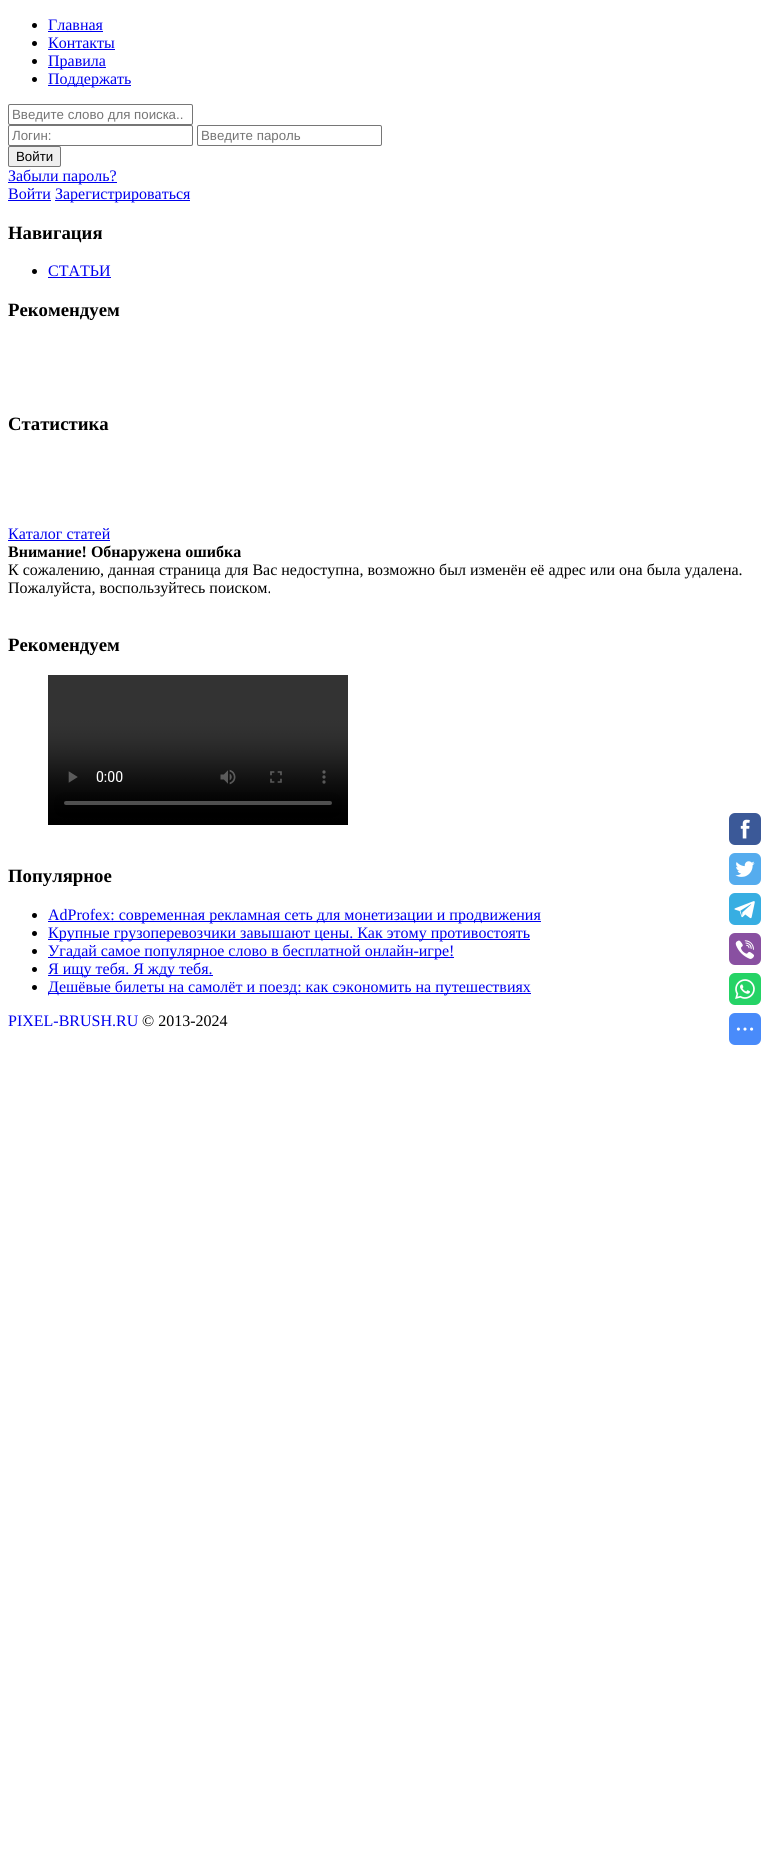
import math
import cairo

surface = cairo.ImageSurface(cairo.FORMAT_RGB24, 765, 1858)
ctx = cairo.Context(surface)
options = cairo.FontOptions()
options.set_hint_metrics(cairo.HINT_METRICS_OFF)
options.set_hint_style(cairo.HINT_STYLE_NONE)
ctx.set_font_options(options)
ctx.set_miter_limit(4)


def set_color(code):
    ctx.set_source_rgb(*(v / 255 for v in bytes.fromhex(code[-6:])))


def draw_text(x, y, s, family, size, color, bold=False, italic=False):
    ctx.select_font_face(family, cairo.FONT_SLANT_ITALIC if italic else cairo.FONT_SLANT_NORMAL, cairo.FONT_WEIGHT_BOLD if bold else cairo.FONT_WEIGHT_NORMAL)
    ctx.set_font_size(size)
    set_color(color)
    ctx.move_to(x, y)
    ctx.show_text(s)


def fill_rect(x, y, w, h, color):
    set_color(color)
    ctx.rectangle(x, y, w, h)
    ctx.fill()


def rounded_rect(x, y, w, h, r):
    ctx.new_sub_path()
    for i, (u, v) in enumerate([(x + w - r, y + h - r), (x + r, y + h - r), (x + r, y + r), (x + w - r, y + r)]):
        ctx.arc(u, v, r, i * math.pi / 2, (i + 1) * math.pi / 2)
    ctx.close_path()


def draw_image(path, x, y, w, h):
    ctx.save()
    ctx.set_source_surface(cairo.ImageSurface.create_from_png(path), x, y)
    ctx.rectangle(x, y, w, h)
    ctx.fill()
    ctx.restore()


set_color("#ffffff")
ctx.paint()
set_color("#000000")
ctx.arc(34.5, 25.5, 2.5, 0, 2 * math.pi)
ctx.fill()
draw_text(48, 30, "Главная", "Liberation Serif", 16, "#0000ee")
fill_rect(48, 31, 55, 1, "#0000ee")
set_color("#000000")
ctx.new_path()
ctx.arc(34.5, 43.5, 2.5, 0, 2 * math.pi)
ctx.fill()
draw_text(48, 48, "Контакты", "Liberation Serif", 16, "#0000ee")
fill_rect(48, 49, 67, 1, "#0000ee")
set_color("#000000")
ctx.new_path()
ctx.arc(34.5, 61.5, 2.5, 0, 2 * math.pi)
ctx.fill()
fill_rect(48, 67, 58, 1, "#0000ee")
draw_text(48, 66, "Правила", "Liberation Serif", 16, "#0000ee")
set_color("#000000")
ctx.new_path()
ctx.arc(34.5, 79.5, 2.5, 0, 2 * math.pi)
ctx.fill()
fill_rect(48, 85, 83, 1, "#0000ee")
draw_text(48, 84, "Поддержать", "Liberation Serif", 16, "#0000ee")
set_color("#3b5998")
rounded_rect(729, 813, 32, 32, 6)
ctx.fill()
draw_image("assets/img1.png", 740, 819, 10, 20)
set_color("#55acee")
rounded_rect(729, 853, 32, 32, 6)
ctx.fill()
draw_image("assets/img2.png", 735, 861, 20, 16)
set_color("#37aee2")
rounded_rect(729, 893, 32, 32, 6)
ctx.fill()
draw_image("assets/img3.png", 734, 901, 21, 18)
set_color("#8950a1")
rounded_rect(729, 933, 32, 32, 6)
ctx.fill()
draw_image("assets/img4.png", 735, 940, 19, 19)
set_color("#25d366")
rounded_rect(729, 973, 32, 32, 6)
ctx.fill()
draw_image("assets/img5.png", 735, 979, 20, 20)
set_color("#498bfa")
rounded_rect(729, 1013, 32, 32, 6)
ctx.fill()
draw_image("assets/img6.png", 736, 1027, 18, 4)
rounded_rect(8.5, 104.5, 184, 20, 1.5)
set_color("#767676")
ctx.set_line_width(1)
ctx.stroke()
draw_text(12, 119, "Введите слово для поиска..", "Liberation Sans", 13.3, "#757575")
rounded_rect(8.5, 125.5, 184, 20, 1.5)
set_color("#767676")
ctx.stroke()
draw_text(12, 140, "Логин:", "Liberation Sans", 13.3, "#757575")
rounded_rect(197.5, 125.5, 184, 20, 1.5)
set_color("#767676")
ctx.stroke()
draw_text(201, 140, "Введите пароль", "Liberation Sans", 13.3, "#757575")
set_color("#efefef")
rounded_rect(8.5, 146.5, 52, 20, 1.5)
ctx.fill_preserve()
set_color("#767676")
ctx.stroke()
draw_text(16, 161, "Войти", "Liberation Sans", 13.3, "#000000")
fill_rect(8, 182, 109, 1, "#0000ee")
draw_text(8, 181, "Забыли пароль?", "Liberation Serif", 16, "#0000ee")
draw_text(8, 199, "Войти", "Liberation Serif", 16, "#0000ee")
fill_rect(8, 200, 43, 1, "#0000ee")
fill_rect(55, 200, 135, 1, "#0000ee")
draw_text(55, 199, "Зарегистрироваться", "Liberation Serif", 16, "#0000ee")
draw_text(8, 239, "Навигация", "Liberation Serif", 18.75, "#000000", bold=True)
ctx.new_path()
ctx.arc(34.5, 271.5, 2.5, 0, 2 * math.pi)
ctx.fill()
draw_text(48, 276, "СТАТЬИ", "Liberation Serif", 16, "#0000ee")
fill_rect(48, 277, 63, 1, "#0000ee")
draw_text(8, 316, "Рекомендуем", "Liberation Serif", 18.75, "#000000", bold=True)
draw_text(8, 430, "Статистика", "Liberation Serif", 18.75, "#000000", bold=True)
draw_text(8, 539, "Каталог статей", "Liberation Serif", 16, "#0000ee")
fill_rect(8, 540, 102, 1, "#0000ee")
draw_text(8, 557, "Внимание! Обнаружена ошибка", "Liberation Serif", 16, "#000000", bold=True)
draw_text(8, 575, "К сожалению, данная страница для Вас недоступна, возможно был изменён её адрес или она была удалена.", "Liberation Serif", 16, "#000000")
draw_text(8, 593, "Пожалуйста, воспользуйтесь поиском.", "Liberation Serif", 16, "#000000")
draw_text(8, 651, "Рекомендуем", "Liberation Serif", 18.75, "#000000", bold=True)
draw_image("assets/img7.png", 48, 675, 300, 150)
draw_text(8, 882, "Популярное", "Liberation Serif", 18.75, "#000000", bold=True)
ctx.new_path()
ctx.arc(34.5, 915.5, 2.5, 0, 2 * math.pi)
ctx.fill()
fill_rect(48, 921, 493, 1, "#0000ee")
draw_text(48, 920, "AdProfex: современная рекламная сеть для монетизации и продвижения", "Liberation Serif", 16, "#0000ee")
set_color("#000000")
ctx.new_path()
ctx.arc(34.5, 933.5, 2.5, 0, 2 * math.pi)
ctx.fill()
fill_rect(48, 939, 482, 1, "#0000ee")
draw_text(48, 938, "Крупные грузоперевозчики завышают цены. Как этому противостоять", "Liberation Serif", 16, "#0000ee")
set_color("#000000")
ctx.new_path()
ctx.arc(34.5, 951.5, 2.5, 0, 2 * math.pi)
ctx.fill()
fill_rect(48, 957, 406, 1, "#0000ee")
draw_text(48, 956, "Угадай самое популярное слово в бесплатной онлайн-игре!", "Liberation Serif", 16, "#0000ee")
set_color("#000000")
ctx.new_path()
ctx.arc(34.5, 969.5, 2.5, 0, 2 * math.pi)
ctx.fill()
fill_rect(48, 975, 165, 1, "#0000ee")
draw_text(48, 974, "Я ищу тебя. Я жду тебя.", "Liberation Serif", 16, "#0000ee")
set_color("#000000")
ctx.new_path()
ctx.arc(34.5, 987.5, 2.5, 0, 2 * math.pi)
ctx.fill()
fill_rect(48, 993, 483, 1, "#0000ee")
draw_text(48, 992, "Дешёвые билеты на самолёт и поезд: как сэкономить на путешествиях", "Liberation Serif", 16, "#0000ee")
draw_text(8, 1026, "PIXEL-BRUSH.RU", "Liberation Serif", 16, "#0000ee")
draw_text(142, 1026, "© 2013-2024", "Liberation Serif", 16, "#000000")
surface.write_to_png("output.png")
